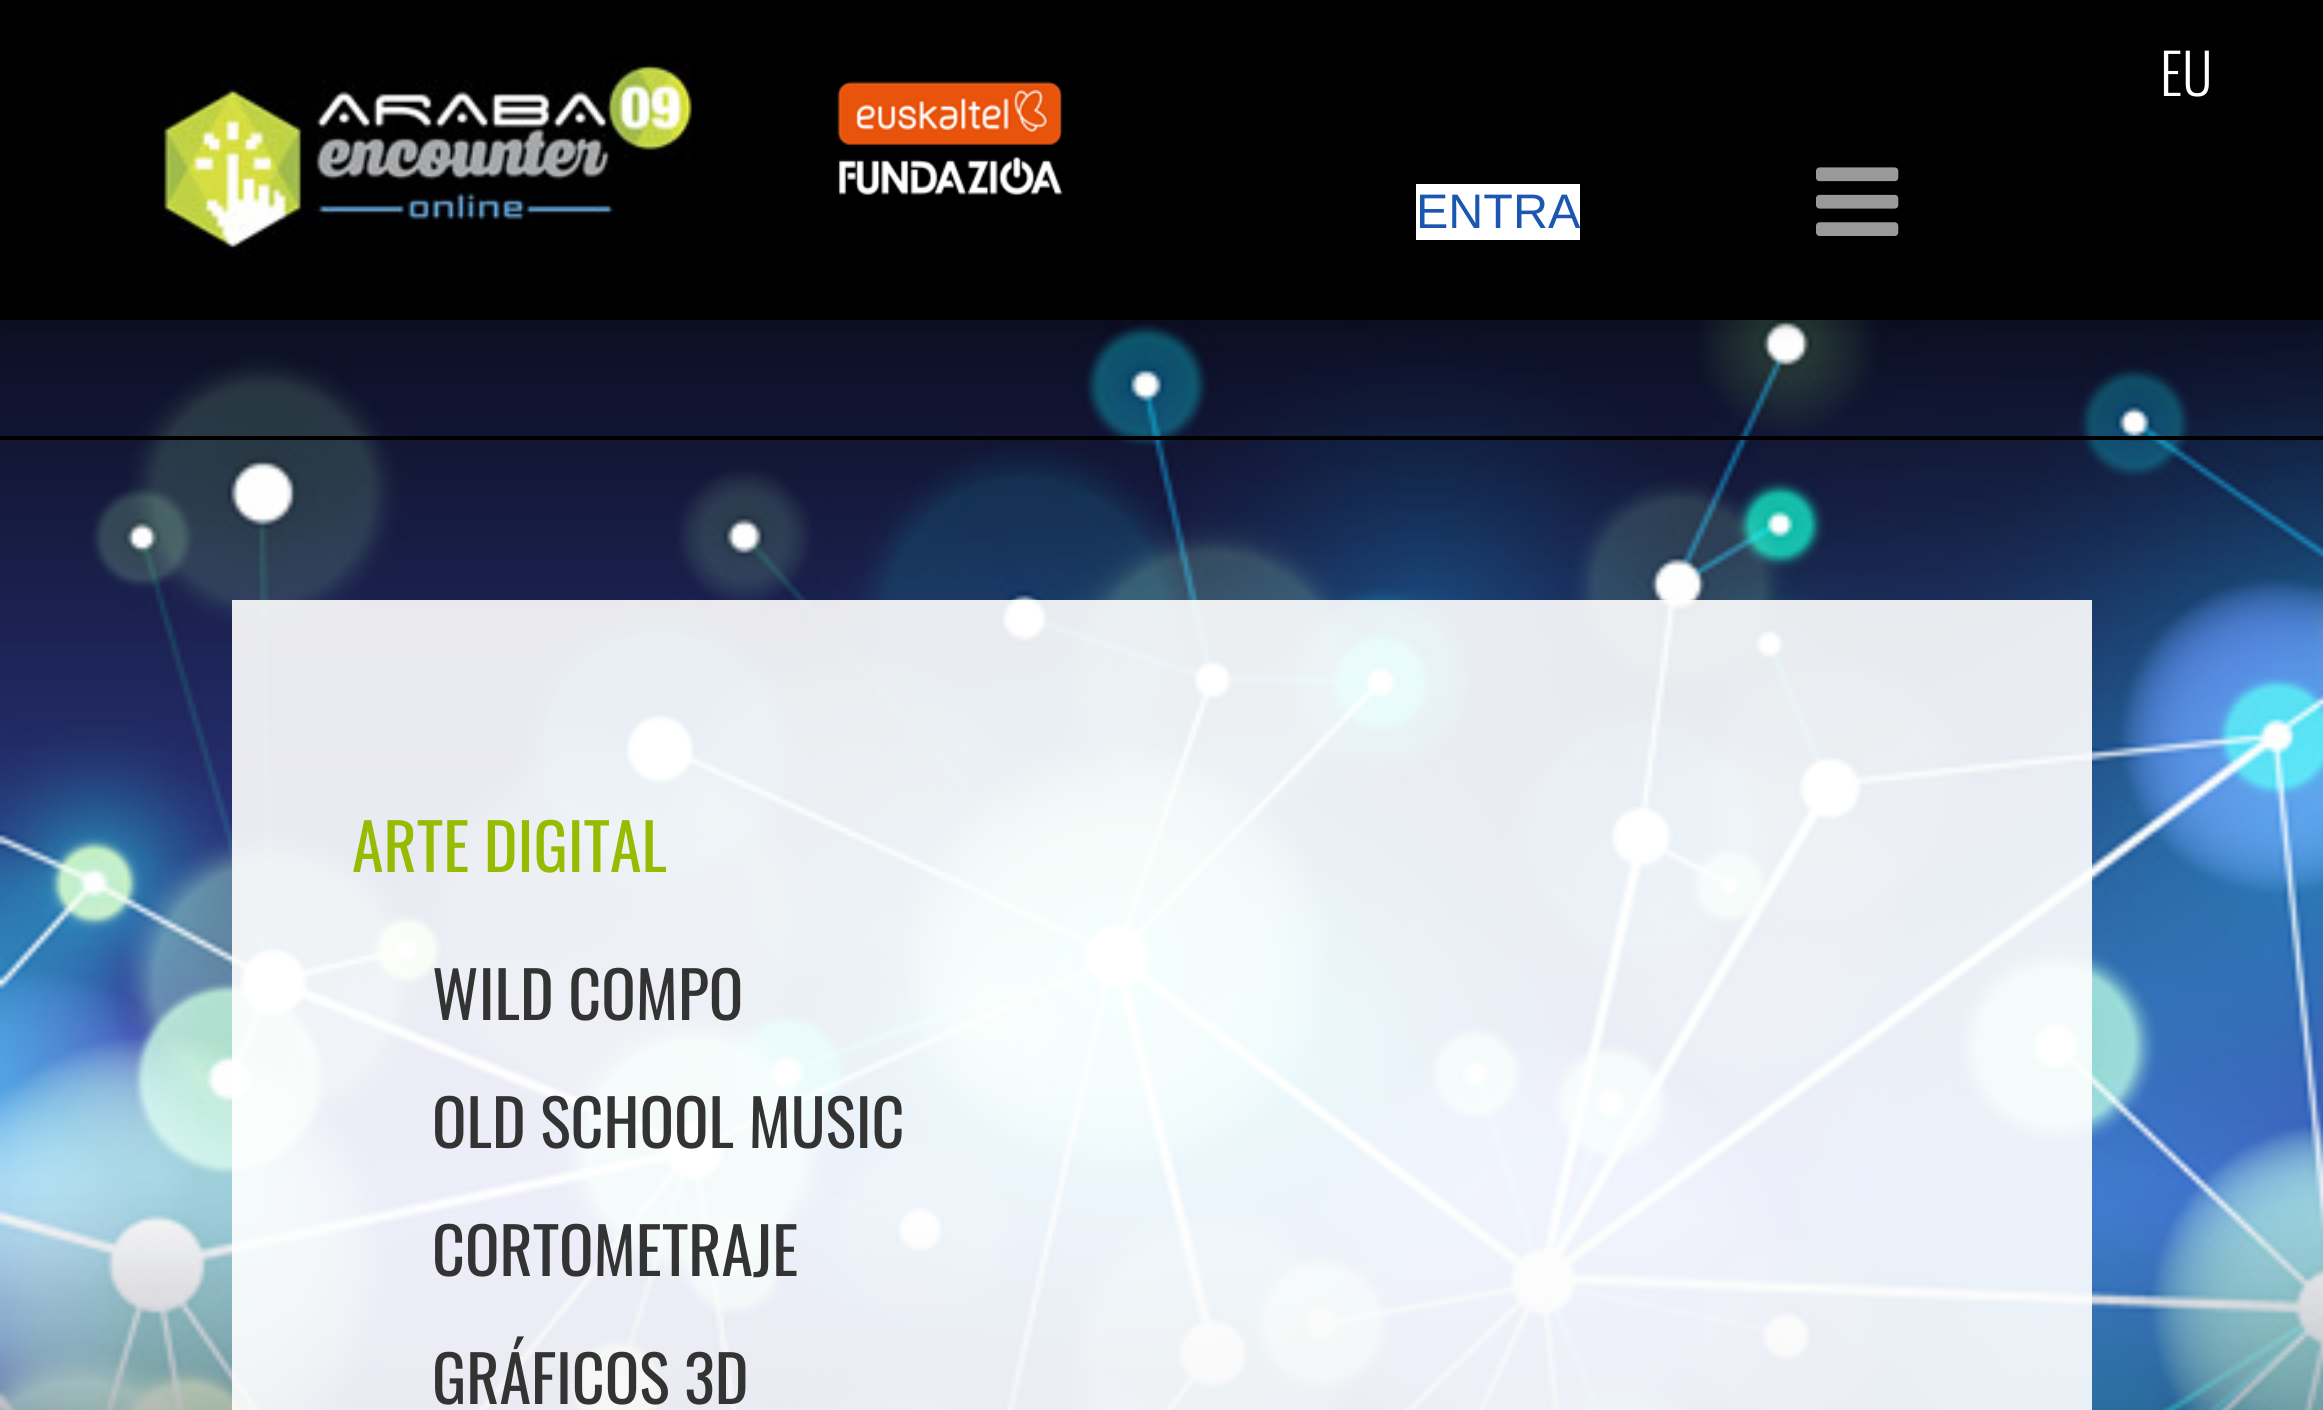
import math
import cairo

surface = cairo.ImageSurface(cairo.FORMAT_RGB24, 2323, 1410)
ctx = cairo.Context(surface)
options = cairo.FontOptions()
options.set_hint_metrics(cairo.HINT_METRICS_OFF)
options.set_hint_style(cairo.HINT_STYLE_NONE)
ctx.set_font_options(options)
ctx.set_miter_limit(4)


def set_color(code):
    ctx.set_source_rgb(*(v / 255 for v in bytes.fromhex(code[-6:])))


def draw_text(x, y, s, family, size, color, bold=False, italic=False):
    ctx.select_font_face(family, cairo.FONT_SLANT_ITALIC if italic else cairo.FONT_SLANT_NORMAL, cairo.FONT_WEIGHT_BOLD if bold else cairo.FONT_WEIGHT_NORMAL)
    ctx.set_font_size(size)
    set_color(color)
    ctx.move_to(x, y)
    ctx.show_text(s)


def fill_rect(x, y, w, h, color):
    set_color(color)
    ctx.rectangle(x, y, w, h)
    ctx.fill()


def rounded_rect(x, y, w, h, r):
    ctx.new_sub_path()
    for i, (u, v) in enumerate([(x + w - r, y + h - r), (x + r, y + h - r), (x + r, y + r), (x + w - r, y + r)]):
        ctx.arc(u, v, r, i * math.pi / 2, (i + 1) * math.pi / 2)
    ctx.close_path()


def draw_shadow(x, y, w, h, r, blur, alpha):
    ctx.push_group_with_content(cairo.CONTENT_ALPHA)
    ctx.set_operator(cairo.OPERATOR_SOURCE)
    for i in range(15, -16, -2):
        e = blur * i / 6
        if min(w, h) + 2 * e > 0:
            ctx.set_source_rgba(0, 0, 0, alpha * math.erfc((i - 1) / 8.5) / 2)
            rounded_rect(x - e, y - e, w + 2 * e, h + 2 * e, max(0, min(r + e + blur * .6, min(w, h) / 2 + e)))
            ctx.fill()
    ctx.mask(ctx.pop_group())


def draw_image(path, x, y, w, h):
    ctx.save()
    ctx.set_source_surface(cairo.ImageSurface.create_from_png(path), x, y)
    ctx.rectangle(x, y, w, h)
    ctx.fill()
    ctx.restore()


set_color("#ffffff")
ctx.paint()
draw_image("assets/img1.png", 0, 320, 2323, 1090)
set_color("#000000")
draw_shadow(0, 12, 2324, 320, 0, 6, 0.05)
fill_rect(0, 0, 2323, 320, "#000000")
draw_image("assets/img2.png", 160, 60, 532, 196)
draw_image("assets/img3.png", 837, 81, 226, 115)
draw_text(2160, 96, "EU", "Oswald Light", 56, "#ffffff")
fill_rect(1416, 184, 164, 56, "#ffffff")
draw_text(1416, 228, "ENTRA", "Liberation Sans", 48.5, "#1b57b1")
draw_image("assets/img4.png", 1816, 167, 83, 69)
fill_rect(0, 436, 2323, 4, "#000000")
ctx.set_source_rgba(1, 1, 1, 0.9)
ctx.rectangle(232, 600, 1860, 810)
ctx.fill()
draw_text(352, 872, "ARTE DIGITAL", "Oswald", 64, "#95bc00")
draw_text(432, 1020, "WILD COMPO", "Oswald", 64, "#333333")
draw_text(432, 1148, "OLD SCHOOL MUSIC", "Oswald", 64, "#333333")
draw_text(432, 1276, "CORTOMETRAJE", "Oswald", 64, "#333333")
draw_text(432, 1404, "GRÁFICOS 3D", "Oswald", 64, "#333333")
surface.write_to_png("output.png")
